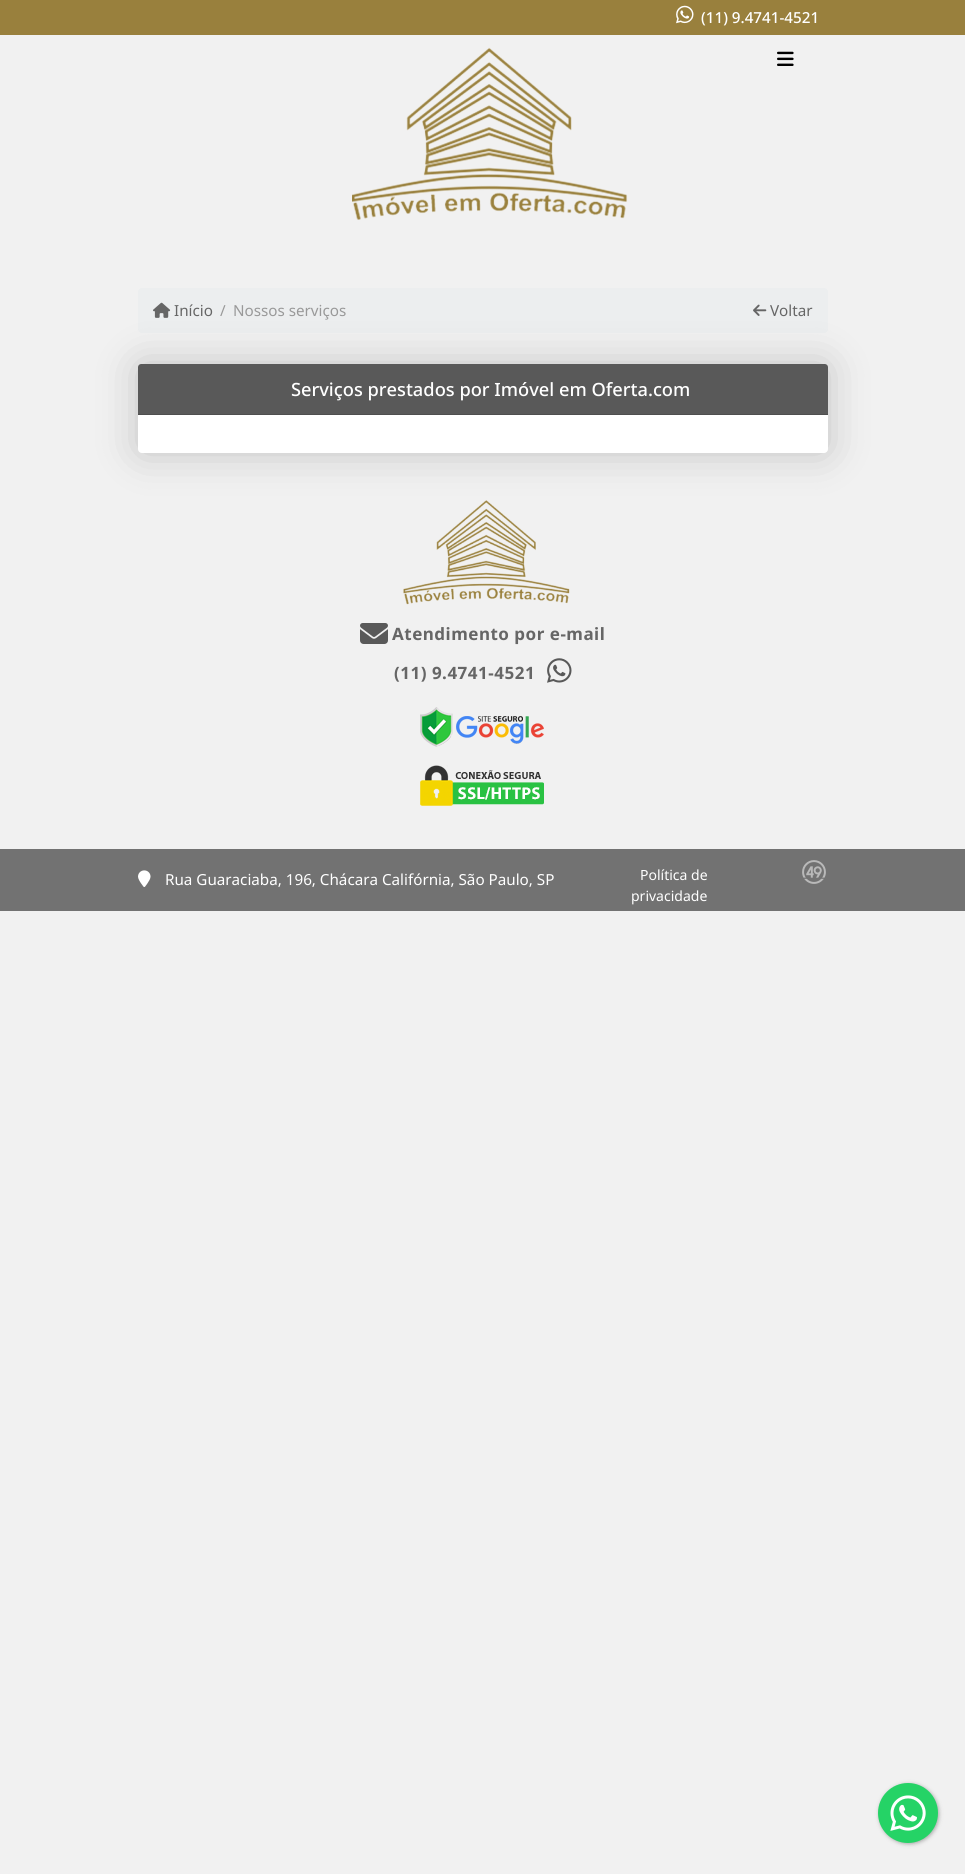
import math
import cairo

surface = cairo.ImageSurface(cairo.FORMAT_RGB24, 965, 1874)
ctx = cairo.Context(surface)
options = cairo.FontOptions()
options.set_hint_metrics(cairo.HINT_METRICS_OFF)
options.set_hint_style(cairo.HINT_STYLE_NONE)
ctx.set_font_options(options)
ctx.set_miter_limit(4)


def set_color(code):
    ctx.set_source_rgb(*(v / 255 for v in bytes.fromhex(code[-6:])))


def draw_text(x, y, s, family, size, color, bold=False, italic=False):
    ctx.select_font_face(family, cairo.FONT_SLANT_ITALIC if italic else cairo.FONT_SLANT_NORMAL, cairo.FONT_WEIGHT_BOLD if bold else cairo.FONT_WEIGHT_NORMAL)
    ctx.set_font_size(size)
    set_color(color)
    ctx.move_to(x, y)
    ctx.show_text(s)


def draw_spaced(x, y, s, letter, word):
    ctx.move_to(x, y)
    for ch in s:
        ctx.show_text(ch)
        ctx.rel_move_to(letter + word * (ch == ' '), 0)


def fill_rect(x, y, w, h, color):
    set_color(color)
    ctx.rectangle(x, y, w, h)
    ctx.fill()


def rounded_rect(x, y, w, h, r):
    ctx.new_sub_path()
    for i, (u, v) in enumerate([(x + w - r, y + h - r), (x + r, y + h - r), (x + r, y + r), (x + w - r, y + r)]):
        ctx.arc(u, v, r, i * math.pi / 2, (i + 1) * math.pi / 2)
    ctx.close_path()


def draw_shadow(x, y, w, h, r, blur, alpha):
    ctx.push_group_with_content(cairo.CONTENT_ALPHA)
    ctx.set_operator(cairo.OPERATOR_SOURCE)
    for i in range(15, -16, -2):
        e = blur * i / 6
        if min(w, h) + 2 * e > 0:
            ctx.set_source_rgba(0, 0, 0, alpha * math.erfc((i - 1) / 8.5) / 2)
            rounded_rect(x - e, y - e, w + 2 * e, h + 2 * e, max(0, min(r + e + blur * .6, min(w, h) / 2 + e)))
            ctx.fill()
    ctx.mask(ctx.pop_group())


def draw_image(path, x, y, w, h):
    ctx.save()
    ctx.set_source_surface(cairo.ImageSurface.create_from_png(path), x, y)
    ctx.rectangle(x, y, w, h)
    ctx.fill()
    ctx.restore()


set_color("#f1f1f1")
ctx.paint()
fill_rect(0, 0, 965, 35, "#99803d")
draw_image("assets/img1.png", 676, 5, 18, 19)
draw_text(701, 23, "(11) 9.4741-4521", "Noto Sans Medium", 15.2, "#ffffff")
draw_image("assets/img2.png", 352, 47, 276, 173)
draw_image("assets/img3.png", 777, 51, 17, 15)
set_color("#3c3c3c")
draw_shadow(879, 1784, 60, 60, 30, 2, 0.4)
draw_image("assets/img4.png", 878, 1783, 60, 60)
set_color("#eceeef")
rounded_rect(138, 288, 690, 45, 4)
ctx.fill()
draw_image("assets/img5.png", 153, 302, 18, 16)
draw_text(174, 316, "Início", "Noto Sans", 15.2, "#666666")
draw_text(220, 316, "/", "Noto Sans", 15.2, "#999999")
draw_text(233, 316, "Nossos serviços", "Noto Sans", 15.2, "#999999")
draw_image("assets/img6.png", 753, 304, 14, 12)
draw_text(770, 316, "Voltar", "Noto Sans", 15.2, "#666666")
set_color("#000000")
draw_shadow(138, 364, 690, 89, 4, 20, 0.2)
set_color("#ffffff")
rounded_rect(138, 364, 690, 89, 4)
ctx.fill()
set_color("#595959")
ctx.new_path()
ctx.move_to(141, 364)
ctx.line_to(825, 364)
ctx.curve_to(826.5, 364, 828, 365.5, 828, 367)
ctx.line_to(828, 415)
ctx.line_to(138, 415)
ctx.line_to(138, 367)
ctx.curve_to(138, 365.5, 139.5, 364, 141, 364)
ctx.close_path()
ctx.fill()
fill_rect(138, 414, 690, 1, "#4e4e4e")
draw_text(291, 396, "Serviços prestados por Imóvel em Oferta.com", "Noto Sans Medium", 18.25, "#ffffff")
draw_image("assets/img7.png", 403, 500, 167, 105)
draw_image("assets/img8.png", 360, 623, 28, 21)
ctx.select_font_face("Noto Sans", cairo.FONT_SLANT_NORMAL, cairo.FONT_WEIGHT_BOLD)
ctx.set_font_size(17)
set_color("#666666")
draw_spaced(392, 640, "Atendimento por e-mail", 0.5, 0)
draw_spaced(394, 679, "(11) 9.4741-4521", 0.5, 0)
draw_image("assets/img9.png", 547, 658, 25, 25)
draw_image("assets/img10.png", 420, 707, 124, 40)
draw_image("assets/img11.png", 420, 765, 124, 41)
fill_rect(0, 849, 965, 62, "#727272")
draw_image("assets/img12.png", 138, 870, 13, 17)
draw_text(165, 885, "Rua Guaraciaba, 196, Chácara Califórnia, São Paulo, SP", "Noto Sans", 15.2, "#ffffff")
draw_text(640, 880, "Política de", "Noto Sans", 14, "#ffffff")
draw_text(631, 901, "privacidade", "Noto Sans", 14, "#ffffff")
draw_image("assets/img13.png", 802, 860, 24, 24)
surface.write_to_png("output.png")
